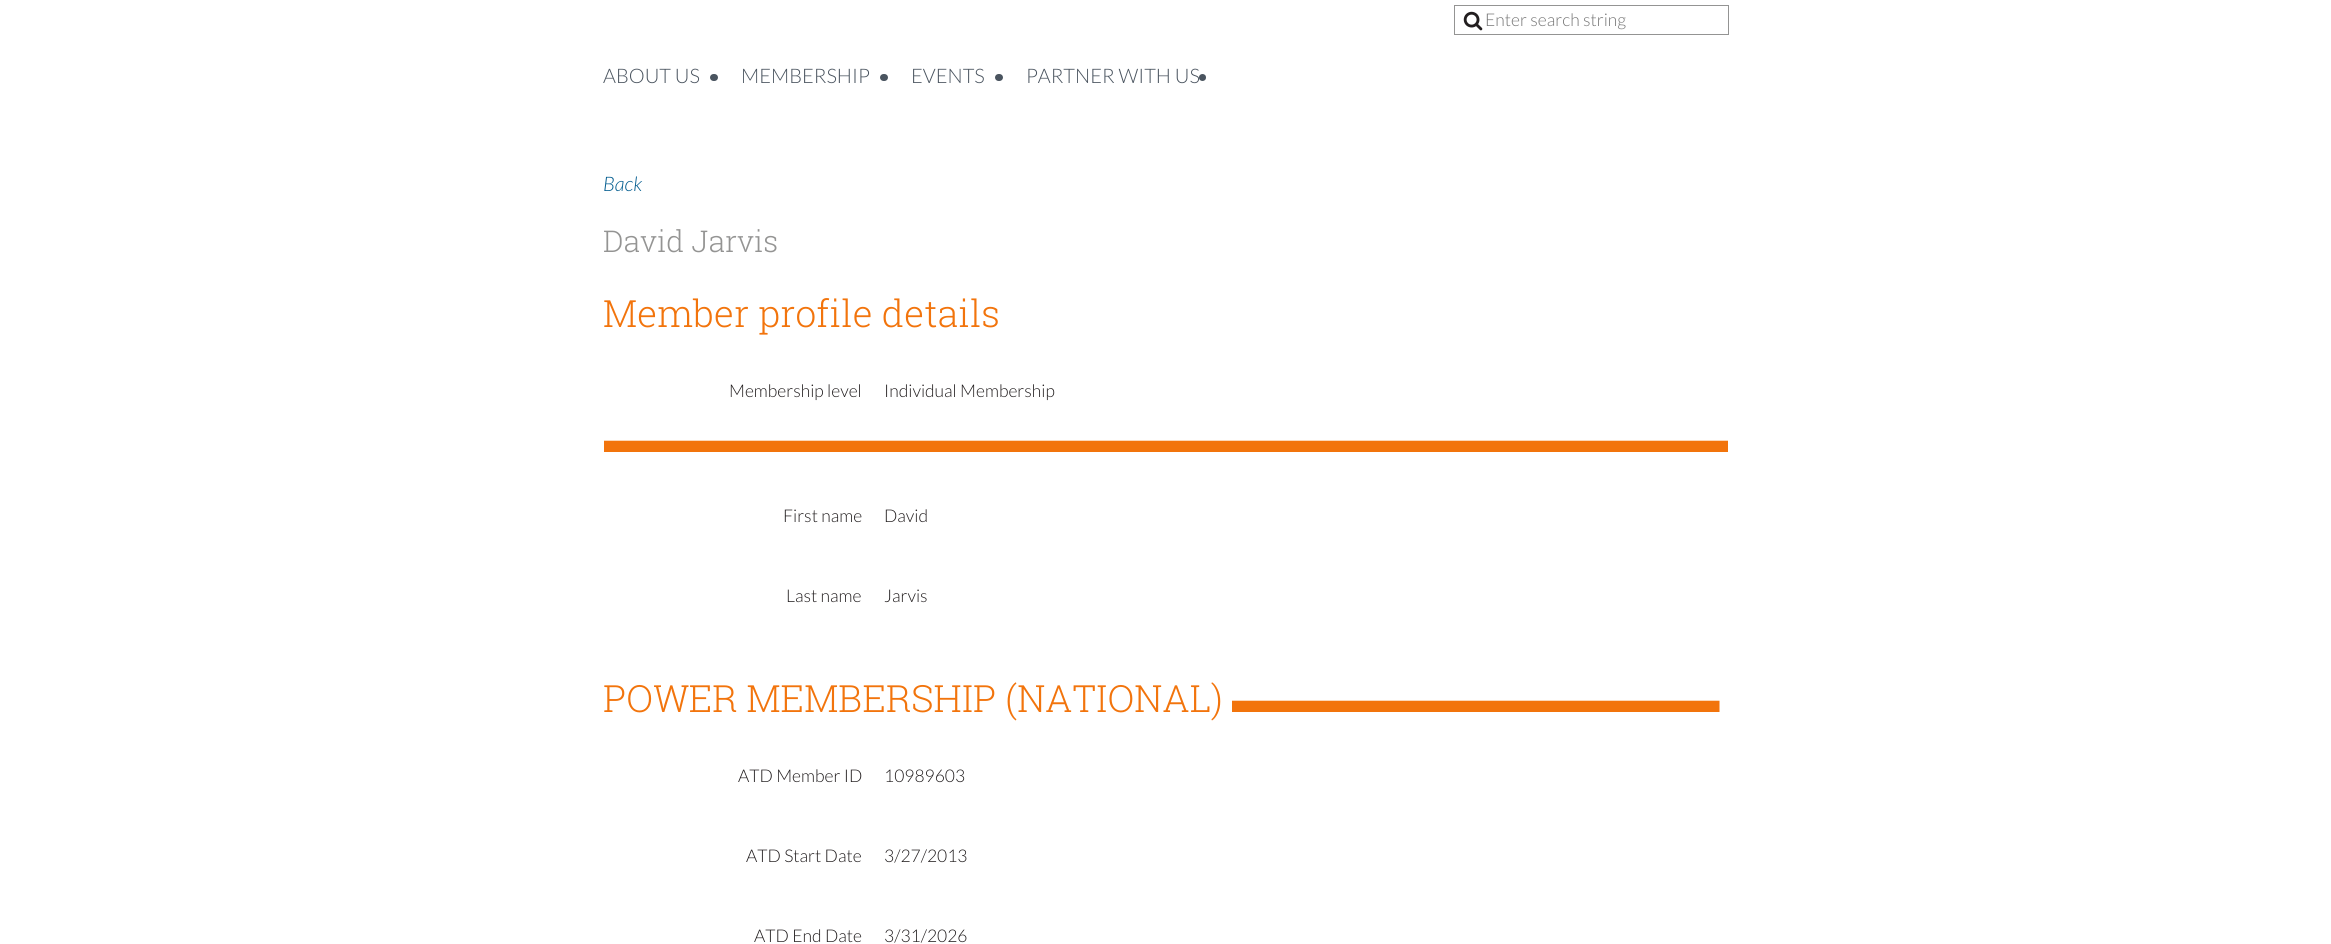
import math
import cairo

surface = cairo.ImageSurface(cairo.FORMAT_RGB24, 2331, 944)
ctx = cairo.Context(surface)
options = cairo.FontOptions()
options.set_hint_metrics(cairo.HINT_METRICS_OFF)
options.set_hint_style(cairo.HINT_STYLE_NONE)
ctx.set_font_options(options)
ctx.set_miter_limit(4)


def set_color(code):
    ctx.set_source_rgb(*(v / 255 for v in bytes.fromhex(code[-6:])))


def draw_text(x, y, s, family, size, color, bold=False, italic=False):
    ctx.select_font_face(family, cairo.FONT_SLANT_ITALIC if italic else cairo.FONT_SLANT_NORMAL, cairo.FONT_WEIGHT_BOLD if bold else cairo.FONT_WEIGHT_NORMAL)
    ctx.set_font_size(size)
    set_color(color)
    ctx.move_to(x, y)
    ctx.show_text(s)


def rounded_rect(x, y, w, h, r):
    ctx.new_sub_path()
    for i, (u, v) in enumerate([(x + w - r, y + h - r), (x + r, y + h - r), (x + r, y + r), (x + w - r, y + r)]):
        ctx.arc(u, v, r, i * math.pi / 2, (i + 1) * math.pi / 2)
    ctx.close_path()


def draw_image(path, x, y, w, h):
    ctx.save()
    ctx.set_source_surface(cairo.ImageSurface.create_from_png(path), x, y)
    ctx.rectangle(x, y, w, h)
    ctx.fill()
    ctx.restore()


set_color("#ffffff")
ctx.paint()
ctx.rectangle(1454.5, 5.5, 274, 29)
set_color("#949493")
ctx.set_line_width(1)
ctx.stroke()
draw_image("assets/img1.png", 1463, 11, 20, 20)
draw_text(1485, 26, "Enter search string", "Lato Light", 17.5, "#757575")
draw_text(603, 83, "ABOUT US", "Lato Light", 20, "#4a545f")
rounded_rect(710, 74, 8, 7, 3.5)
ctx.fill()
draw_text(741, 83, "MEMBERSHIP", "Lato Light", 20, "#4a545f")
rounded_rect(880, 74, 8, 7, 3.5)
ctx.fill()
draw_text(911, 83, "EVENTS", "Lato Light", 20, "#4a545f")
rounded_rect(995, 74, 8, 7, 3.5)
ctx.fill()
draw_text(1026, 83, "PARTNER WITH US", "Lato Light", 20, "#4a545f")
ctx.new_path()
ctx.arc(1202.5, 77.5, 3.5, 0, 2 * math.pi)
ctx.fill()
draw_text(603, 191, "Back", "Lato Light", 20, "#005b8e", italic=True)
draw_text(603, 252, "David Jarvis", "Roboto Slab Light", 30, "#949493")
draw_text(603, 327, "Member profile details", "Roboto Slab Light", 37.5, "#f2740c")
draw_text(729, 397, "Membership level", "Lato Light", 17.5, "#221e1f")
draw_text(884, 397, "Individual Membership", "Lato Light", 17.5, "#221e1f")
ctx.save()
ctx.rectangle(604, 414, 1125, 50)
ctx.clip()
draw_text(603, 452, "▬▬▬▬▬▬▬▬▬▬▬▬▬▬▬▬▬▬▬▬▬▬▬▬▬▬▬▬▬▬", "Liberation Serif", 37.5, "#f2740c")
ctx.restore()
draw_text(783, 522, "First name", "Lato Light", 17.5, "#221e1f")
draw_text(884, 522, "David", "Lato Light", 17.5, "#221e1f")
draw_text(786, 602, "Last name", "Lato Light", 17.5, "#221e1f")
draw_text(884, 602, "Jarvis", "Lato Light", 17.5, "#221e1f")
draw_text(603, 712, "POWER MEMBERSHIP (NATIONAL)", "Roboto Slab Light", 37.5, "#f2740c")
draw_text(1232, 712, "▬▬▬▬▬▬▬▬▬▬▬▬▬", "Liberation Serif", 37.5, "#f2740c")
draw_text(738, 782, "ATD Member ID", "Lato Light", 17.5, "#221e1f")
draw_text(884, 782, "10989603", "Lato Light", 17.5, "#221e1f")
draw_text(746, 862, "ATD Start Date", "Lato Light", 17.5, "#221e1f")
draw_text(884, 862, "3/27/2013", "Lato Light", 17.5, "#221e1f")
draw_text(754, 942, "ATD End Date", "Lato Light", 17.5, "#221e1f")
draw_text(884, 942, "3/31/2026", "Lato Light", 17.5, "#221e1f")
surface.write_to_png("output.png")
